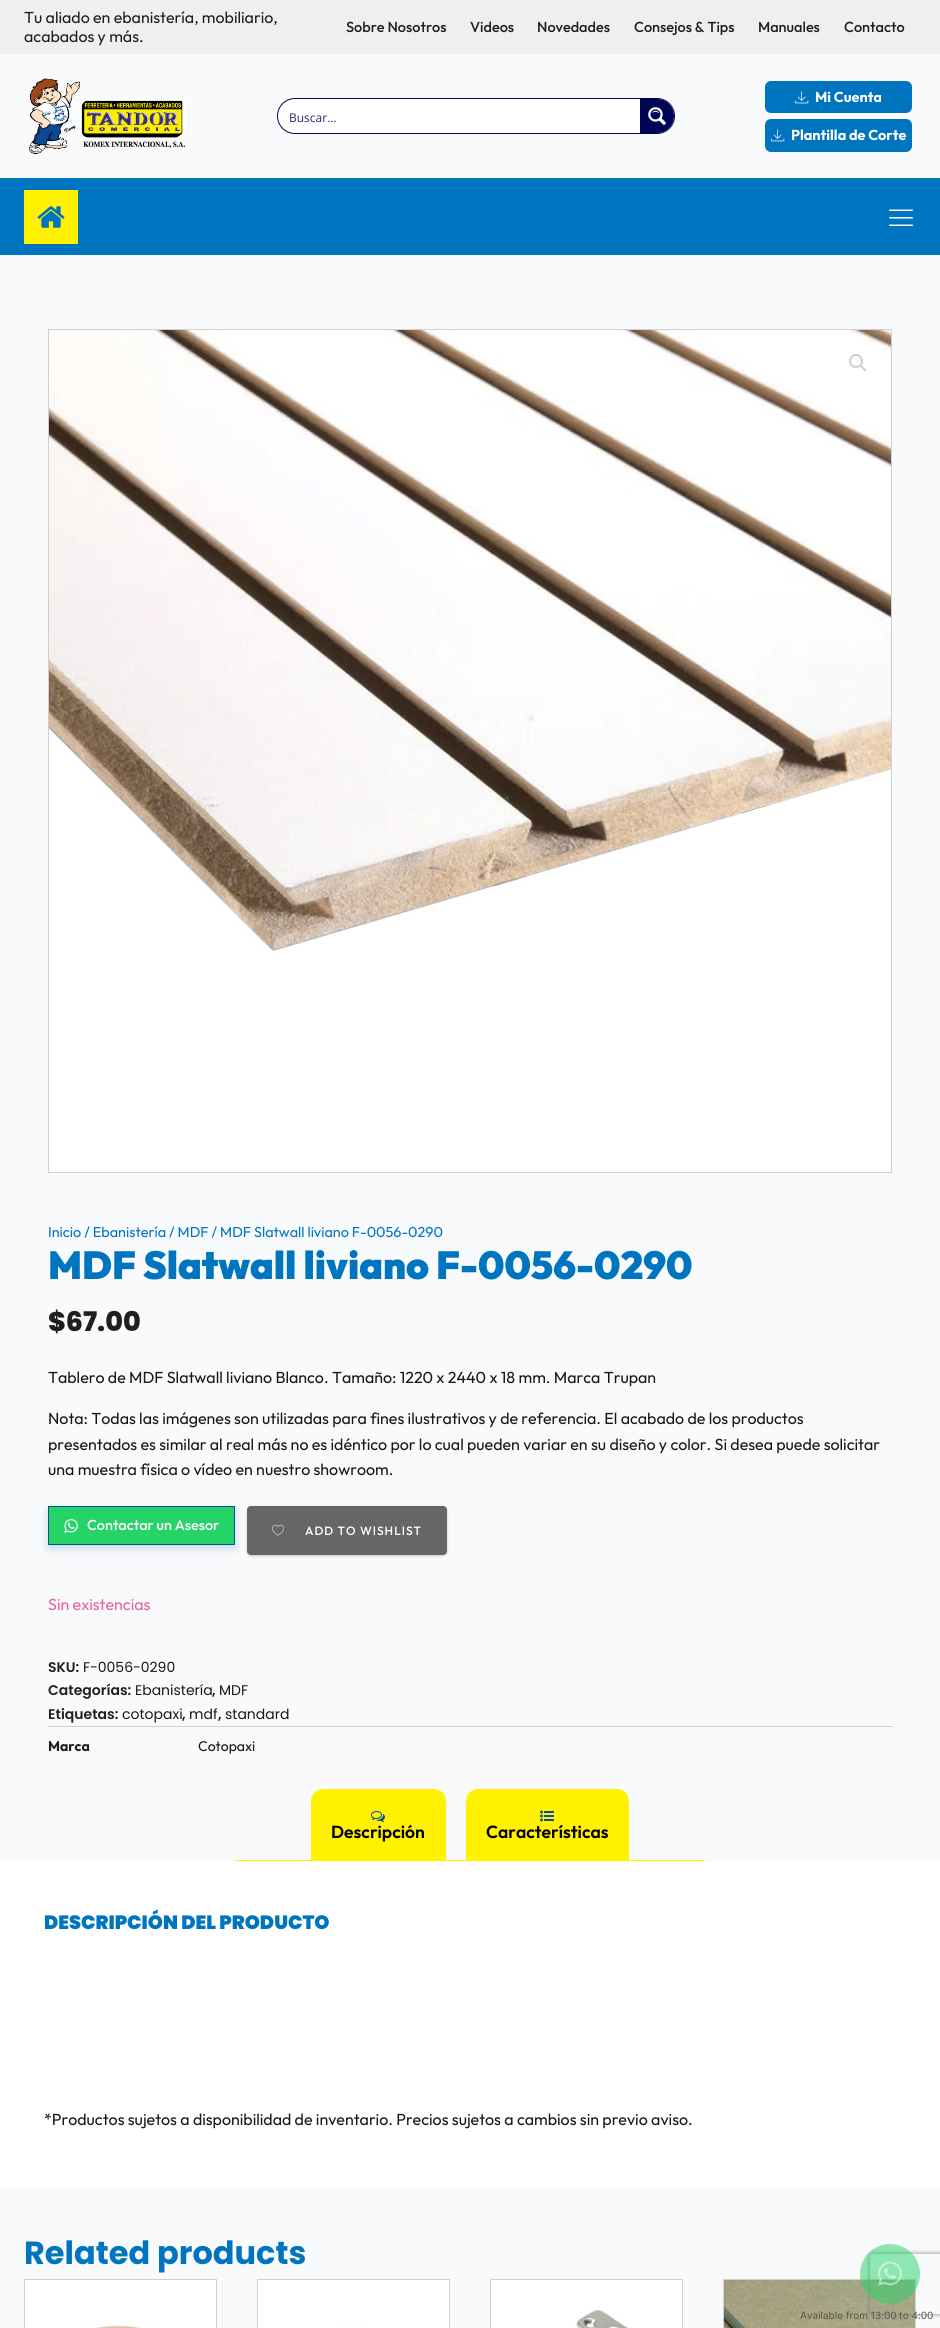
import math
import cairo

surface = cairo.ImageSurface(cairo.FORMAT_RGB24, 940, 2328)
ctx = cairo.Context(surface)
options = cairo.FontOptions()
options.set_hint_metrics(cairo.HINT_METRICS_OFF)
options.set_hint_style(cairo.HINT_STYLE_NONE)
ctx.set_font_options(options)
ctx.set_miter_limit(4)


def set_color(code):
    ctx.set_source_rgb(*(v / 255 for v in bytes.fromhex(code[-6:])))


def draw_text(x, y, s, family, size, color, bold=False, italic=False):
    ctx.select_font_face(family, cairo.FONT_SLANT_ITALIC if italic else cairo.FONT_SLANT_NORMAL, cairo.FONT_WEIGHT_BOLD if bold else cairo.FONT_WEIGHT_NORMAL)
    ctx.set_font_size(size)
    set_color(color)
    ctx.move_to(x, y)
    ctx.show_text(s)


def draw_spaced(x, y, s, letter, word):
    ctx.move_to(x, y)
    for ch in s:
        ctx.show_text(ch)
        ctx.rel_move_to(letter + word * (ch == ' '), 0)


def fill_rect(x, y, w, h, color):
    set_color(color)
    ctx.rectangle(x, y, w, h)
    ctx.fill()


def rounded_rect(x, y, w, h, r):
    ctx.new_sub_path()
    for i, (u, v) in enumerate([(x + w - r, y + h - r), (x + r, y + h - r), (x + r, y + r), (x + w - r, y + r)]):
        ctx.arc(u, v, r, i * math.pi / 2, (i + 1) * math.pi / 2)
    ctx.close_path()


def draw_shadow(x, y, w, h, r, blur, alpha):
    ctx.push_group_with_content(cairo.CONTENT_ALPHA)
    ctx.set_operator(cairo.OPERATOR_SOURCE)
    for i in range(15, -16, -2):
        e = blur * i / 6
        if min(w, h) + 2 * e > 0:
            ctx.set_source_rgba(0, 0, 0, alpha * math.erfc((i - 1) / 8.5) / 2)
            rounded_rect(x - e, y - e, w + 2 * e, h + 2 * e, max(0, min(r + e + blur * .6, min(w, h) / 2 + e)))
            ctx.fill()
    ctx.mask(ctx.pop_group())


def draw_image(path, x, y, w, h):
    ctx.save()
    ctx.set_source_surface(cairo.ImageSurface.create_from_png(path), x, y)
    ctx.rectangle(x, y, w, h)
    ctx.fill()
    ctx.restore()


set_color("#f9fafb")
ctx.paint()
fill_rect(0, 0, 940, 54, "#efefef")
draw_text(24, 23, "Tu aliado en ebanistería, mobiliario,", "Outfit", 16, "#201e1e")
draw_text(24, 42, "acabados y más.", "Outfit", 16, "#201e1e")
draw_text(346, 32, "Sobre Nosotros", "Outfit Medium", 14.5, "#201e1e")
draw_text(470, 32, "Videos", "Outfit Medium", 14.5, "#201e1e")
draw_text(537, 32, "Novedades", "Outfit Medium", 14.5, "#201e1e")
draw_text(634, 32, "Consejos & Tips", "Outfit Medium", 14.5, "#201e1e")
draw_text(758, 32, "Manuales", "Outfit Medium", 14.5, "#201e1e")
draw_text(844, 32, "Contacto", "Outfit Medium", 14.5, "#201e1e")
draw_image("assets/img1.png", 29, 78, 156, 77)
set_color("#ffffff")
rounded_rect(277.5, 98.5, 397, 35, 17.5)
ctx.fill_preserve()
set_color("#000555")
ctx.set_line_width(1)
ctx.stroke()
draw_text(289, 122, "Buscar...", "Open Sans", 12, "#262b6f")
set_color("#000555")
ctx.new_path()
ctx.move_to(640, 99)
ctx.line_to(657, 99)
ctx.curve_to(666.5, 99, 674, 106.5, 674, 116)
ctx.curve_to(674, 125.5, 666.5, 133, 657, 133)
ctx.line_to(640, 133)
ctx.close_path()
ctx.fill()
draw_image("assets/img2.png", 648, 107, 18, 18)
set_color("#0075bf")
rounded_rect(765, 81, 147, 32, 6)
ctx.fill()
draw_image("assets/img3.png", 795, 91, 14, 13)
draw_text(815, 102, "Mi Cuenta", "Outfit", 14.4, "#ffffff", bold=True)
set_color("#0075bf")
rounded_rect(765, 119, 147, 33, 6)
ctx.fill()
draw_image("assets/img3.png", 771, 129, 14, 13)
draw_text(791, 140, "Plantilla de Corte", "Outfit", 14.4, "#ffffff", bold=True)
fill_rect(0, 178, 940, 77, "#0075bf")
fill_rect(24, 190, 54, 54, "#fff100")
draw_image("assets/img4.png", 37, 206, 28, 22)
draw_image("assets/img5.png", 889, 209, 24, 17)
ctx.rectangle(48.5, 329.5, 843, 843)
set_color("#d3ced2")
ctx.stroke()
draw_image("assets/img6.png", 49, 330, 842, 842)
ctx.arc(856, 361, 6, 0, 2 * math.pi)
ctx.set_line_width(2)
ctx.stroke()
ctx.new_path()
ctx.move_to(860, 365.5)
ctx.curve_to(861.5, 364, 863, 367, 863.5, 367.5)
ctx.curve_to(864.5, 368, 867, 369.5, 866, 371)
ctx.curve_to(864.5, 372, 863, 369.5, 862.5, 369)
ctx.curve_to(861.5, 368, 859, 366.5, 860, 365.5)
ctx.close_path()
ctx.fill()
draw_text(48, 1237, "Inicio / Ebanistería / MDF / MDF Slatwall liviano F-0056-0290", "Outfit", 14.4, "#0075bf")
draw_text(48, 1279, "MDF Slatwall liviano F-0056-0290", "Outfit Black", 39, "#0075bf")
draw_text(48, 1331, "$67.00", "Poppins ExtraBold", 27, "#201e1e")
draw_text(48, 1383, "Tablero de MDF Slatwall liviano Blanco. Tamaño: 1220 x 2440 x 18 mm. Marca Trupan", "Outfit", 16, "#171717")
draw_text(48, 1424, "Nota: Todas las imágenes son utilizadas para fines ilustrativos y de referencia. El acabado de los productos", "Outfit", 16, "#171717")
draw_text(48, 1450, "presentados es similar al real más no es idéntico por lo cual pueden variar en su diseño y color. Si desea puede solicitar", "Outfit", 16, "#171717")
draw_text(48, 1475, "una muestra física o vídeo en nuestro showroom.", "Outfit", 16, "#171717")
set_color("#0052a0")
draw_shadow(48, 1510, 187, 39, 0.5, 4.5, 0.2)
set_color("#25d366")
ctx.rectangle(48.5, 1506.5, 186, 38)
ctx.fill_preserve()
set_color("#0052a0")
ctx.set_line_width(1)
ctx.stroke()
draw_image("assets/img7.png", 64, 1519, 14, 14)
draw_text(87, 1530, "Contactar un Asesor", "Outfit Medium", 14.4, "#ffffff")
set_color("#000000")
draw_shadow(247, 1507, 200, 49, 4, 1.5, 0.2)
set_color("#666666")
rounded_rect(247.5, 1506.5, 199, 48, 3.5)
ctx.fill_preserve()
ctx.stroke()
draw_image("assets/img8.png", 272, 1524, 12, 12)
ctx.set_font_size(12)
set_color("#ffffff")
draw_spaced(305, 1535, "ADD TO WISHLIST", 1, 0)
draw_text(48, 1610, "Sin existencias", "Outfit", 16, "#e96199")
draw_text(48, 1672, "SKU:", "Poppins SemiBold", 14, "#201e1e")
draw_text(83, 1672, "F-0056-0290", "Poppins", 14, "#171717")
draw_text(48, 1695, "Categorías:", "Poppins SemiBold", 14, "#201e1e")
draw_text(135, 1695, "Ebanistería", "Poppins", 14, "#171717")
draw_text(212, 1695, ",", "Poppins SemiBold", 14, "#201e1e")
draw_text(219, 1695, "MDF", "Poppins", 14, "#171717")
draw_text(48, 1719, "Etiquetas:", "Poppins SemiBold", 14, "#201e1e")
draw_text(122, 1719, "cotopaxi", "Poppins", 14, "#171717")
draw_text(182, 1719, ",", "Poppins SemiBold", 14, "#201e1e")
draw_text(189, 1719, "mdf", "Poppins", 14, "#171717")
draw_text(218, 1719, ",", "Poppins SemiBold", 14, "#201e1e")
draw_text(225, 1719, "standard", "Poppins", 14, "#171717")
fill_rect(48, 1726, 845, 1, "#d3ced2")
draw_text(48, 1751, "Marca", "Outfit", 14, "#201e1e", bold=True)
draw_text(198, 1751, "Cotopaxi", "Outfit", 14, "#171717")
fill_rect(235, 1860, 470, 1, "#fff100")
ctx.new_path()
ctx.move_to(323, 1789)
ctx.line_to(434, 1789)
ctx.curve_to(440.5, 1789, 446, 1794.5, 446, 1801)
ctx.line_to(446, 1860)
ctx.line_to(311, 1860)
ctx.line_to(311, 1801)
ctx.curve_to(311, 1794.5, 316.5, 1789, 323, 1789)
ctx.close_path()
ctx.fill()
draw_image("assets/img9.png", 371, 1811, 14, 11)
draw_text(331, 1838, "Descripción", "Outfit SemiBold", 17.5, "#000000")
set_color("#fff100")
ctx.new_path()
ctx.move_to(478, 1789)
ctx.line_to(617, 1789)
ctx.curve_to(623.5, 1789, 629, 1794.5, 629, 1801)
ctx.line_to(629, 1860)
ctx.line_to(466, 1860)
ctx.line_to(466, 1801)
ctx.curve_to(466, 1794.5, 471.5, 1789, 478, 1789)
ctx.close_path()
ctx.fill()
draw_image("assets/img10.png", 540, 1810, 14, 12)
draw_text(486, 1838, "Características", "Outfit SemiBold", 17.5, "#000000")
fill_rect(0, 1861, 940, 326, "#ffffff")
draw_text(44, 1929, "DESCRIPCIÓN DEL PRODUCTO", "Poppins Black", 19.25, "#0075bf")
draw_text(44, 2125, "*Productos sujetos a disponibilidad de inventario. Precios sujetos a cambios sin previo aviso.", "Outfit", 16, "#171717")
draw_text(24, 2264, "Related products", "Poppins", 32, "#0075bf", bold=True)
ctx.rectangle(24.5, 2279.5, 192, 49)
set_color("#d3ced2")
ctx.stroke()
draw_image("assets/img11.png", 25, 2280, 191, 48)
ctx.rectangle(257.5, 2279.5, 192, 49)
ctx.stroke()
draw_image("assets/img12.png", 258, 2280, 191, 48)
ctx.rectangle(490.5, 2279.5, 192, 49)
ctx.stroke()
draw_image("assets/img13.png", 491, 2280, 191, 48)
ctx.rectangle(723.5, 2279.5, 192, 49)
ctx.stroke()
draw_image("assets/img14.png", 724, 2280, 191, 48)
ctx.save()
ctx.set_fill_rule(cairo.FILL_RULE_EVEN_ODD)
ctx.new_path()
ctx.move_to(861, 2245)
ctx.line_to(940, 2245)
ctx.line_to(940, 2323)
ctx.line_to(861, 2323)
ctx.close_path()
ctx.move_to(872, 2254)
ctx.line_to(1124, 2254)
ctx.curve_to(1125, 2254, 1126, 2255, 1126, 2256)
ctx.line_to(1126, 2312)
ctx.curve_to(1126, 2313, 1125, 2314, 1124, 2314)
ctx.line_to(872, 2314)
ctx.curve_to(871, 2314, 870, 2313, 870, 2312)
ctx.line_to(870, 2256)
ctx.curve_to(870, 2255, 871, 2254, 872, 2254)
ctx.close_path()
ctx.clip()
set_color("#808080")
draw_shadow(870, 2254, 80, 60, 2, 2.5, 1)
ctx.restore()
ctx.set_source_rgba(0.145, 0.827, 0.4, 0.5)
ctx.arc(890, 2274, 30, 0, 2 * math.pi)
ctx.fill()
draw_image("assets/img15.png", 878, 2261, 24, 25)
draw_text(800, 2319, "Available from 13:00 to 4:00", "Inter", 10, "#57574a")
surface.write_to_png("output.png")
